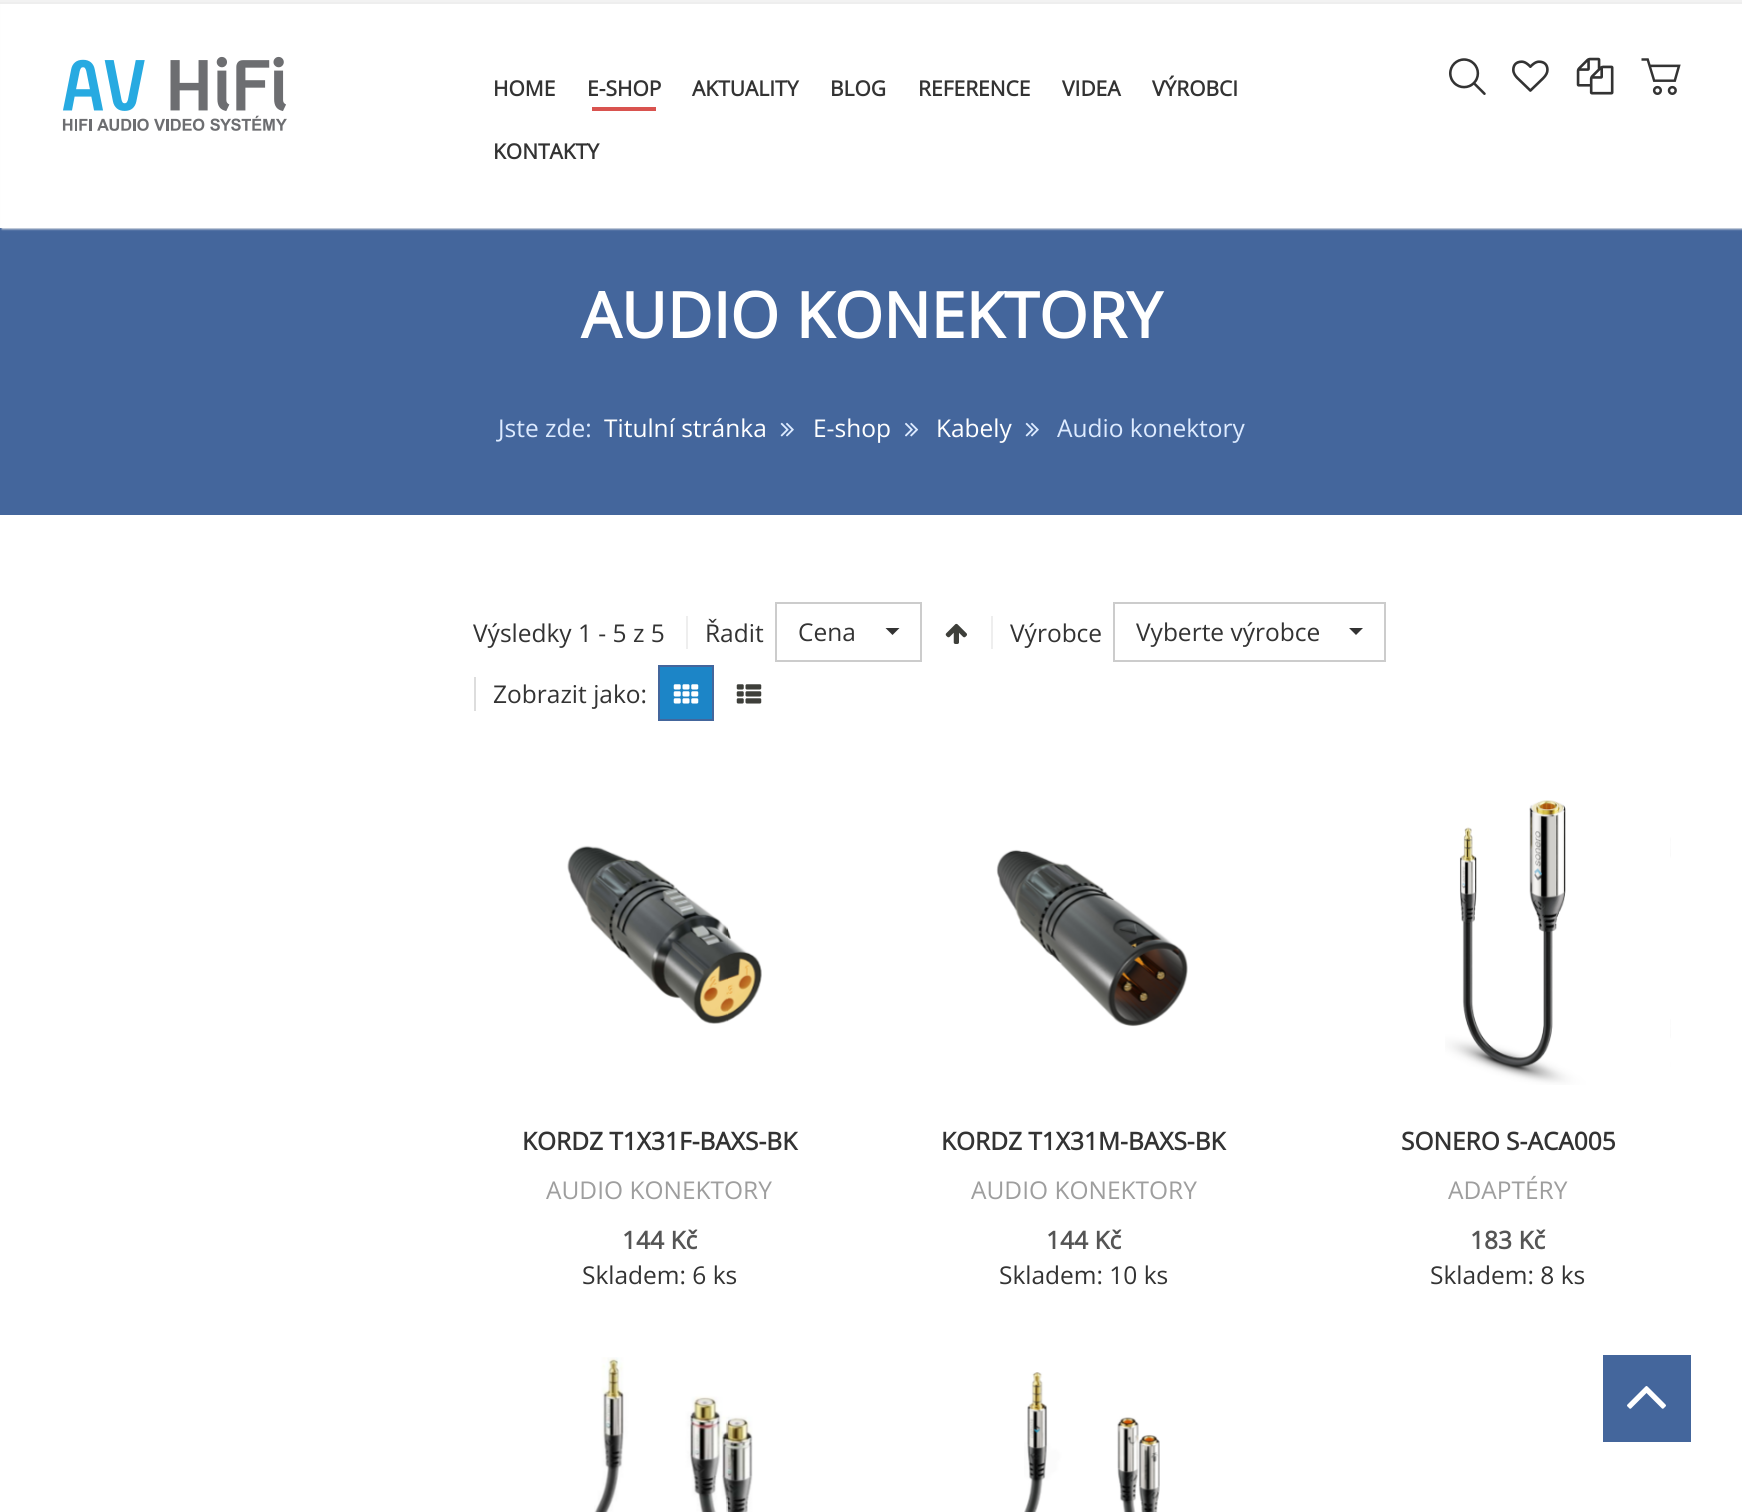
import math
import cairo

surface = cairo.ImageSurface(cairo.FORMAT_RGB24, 1742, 1512)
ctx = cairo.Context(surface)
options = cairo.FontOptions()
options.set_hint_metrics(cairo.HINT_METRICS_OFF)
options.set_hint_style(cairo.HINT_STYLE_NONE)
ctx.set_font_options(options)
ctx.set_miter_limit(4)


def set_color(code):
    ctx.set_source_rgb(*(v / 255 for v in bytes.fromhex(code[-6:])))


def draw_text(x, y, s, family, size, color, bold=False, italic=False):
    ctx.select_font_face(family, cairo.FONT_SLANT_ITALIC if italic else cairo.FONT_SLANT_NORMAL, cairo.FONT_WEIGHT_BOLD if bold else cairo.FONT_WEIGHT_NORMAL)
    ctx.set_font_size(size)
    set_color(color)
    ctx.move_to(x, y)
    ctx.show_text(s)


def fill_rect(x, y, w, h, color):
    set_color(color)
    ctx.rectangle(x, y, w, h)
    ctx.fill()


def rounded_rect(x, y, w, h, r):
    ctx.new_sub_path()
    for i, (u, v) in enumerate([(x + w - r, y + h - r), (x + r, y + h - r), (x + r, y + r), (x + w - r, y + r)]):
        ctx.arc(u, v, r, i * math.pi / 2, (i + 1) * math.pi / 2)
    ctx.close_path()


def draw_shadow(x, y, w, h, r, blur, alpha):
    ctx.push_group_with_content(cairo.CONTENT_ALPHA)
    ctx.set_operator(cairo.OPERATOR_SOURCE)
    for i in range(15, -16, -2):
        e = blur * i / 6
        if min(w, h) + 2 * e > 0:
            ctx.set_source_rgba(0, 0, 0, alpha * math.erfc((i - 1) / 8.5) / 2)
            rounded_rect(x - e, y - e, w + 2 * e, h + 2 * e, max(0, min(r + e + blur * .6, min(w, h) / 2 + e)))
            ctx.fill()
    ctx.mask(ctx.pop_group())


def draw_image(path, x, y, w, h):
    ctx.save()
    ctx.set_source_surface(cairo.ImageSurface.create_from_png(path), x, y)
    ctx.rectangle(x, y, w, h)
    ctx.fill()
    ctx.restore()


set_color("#ffffff")
ctx.paint()
fill_rect(0, 0, 1742, 2, "#f2f2f2")
fill_rect(0, 2, 1742, 2, "#eeeeee")
fill_rect(0, 228, 1742, 287, "#44669c")
set_color("#efefef")
draw_shadow(2, 5, 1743, 224, 0, 1, 1)
fill_rect(1, 4, 1741, 224, "#ffffff")
draw_image("assets/img1.png", 62, 56, 225, 75)
draw_text(493, 96, "HOME", "Open Sans", 21, "#333333", bold=True)
draw_text(587, 96, "E-SHOP", "Open Sans", 21, "#333333", bold=True)
fill_rect(592, 107, 64, 4, "#d9534f")
draw_text(692, 96, "AKTUALITY", "Open Sans", 21, "#333333", bold=True)
draw_text(830, 96, "BLOG", "Open Sans", 21, "#333333", bold=True)
draw_text(918, 96, "REFERENCE", "Open Sans", 21, "#333333", bold=True)
draw_text(1062, 96, "VIDEA", "Open Sans", 21, "#333333", bold=True)
draw_text(1152, 96, "VÝROBCI", "Open Sans", 21, "#333333", bold=True)
draw_text(493, 159, "KONTAKTY", "Open Sans", 21, "#333333", bold=True)
draw_image("assets/img2.png", 1449, 58, 37, 37)
draw_image("assets/img3.png", 1512, 60, 37, 32)
draw_image("assets/img4.png", 1576, 57, 38, 38)
draw_image("assets/img5.png", 1641, 58, 40, 37)
draw_text(581, 338, "AUDIO KONEKTORY", "Open Sans", 63, "#ffffff", bold=True)
draw_text(498, 437, "Jste zde:", "Open Sans", 24.5, "#dceaff")
draw_text(604, 437, "Titulní stránka", "Open Sans", 24.5, "#ffffff")
draw_image("assets/img6.png", 780, 422, 14, 15)
draw_text(813, 437, "E-shop", "Open Sans", 24.5, "#ffffff")
draw_image("assets/img7.png", 905, 422, 14, 15)
draw_text(936, 437, "Kabely", "Open Sans", 24.5, "#ffffff")
draw_image("assets/img6.png", 1025, 422, 14, 15)
draw_text(1057, 437, "Audio konektory", "Open Sans", 24.5, "#dceaff")
draw_text(473, 642, "Výsledky 1 - 5 z 5", "Open Sans", 24.5, "#333333")
fill_rect(686, 616, 2, 33, "#eeeeee")
draw_text(705, 642, "Řadit", "Open Sans", 24.5, "#333333")
ctx.rectangle(776, 603, 145, 58)
set_color("#cccccc")
ctx.stroke()
draw_text(798, 641, "Cena", "Open Sans", 24.5, "#333333")
ctx.new_path()
ctx.move_to(885.5, 628)
ctx.line_to(899.5, 628)
ctx.line_to(892.5, 635)
ctx.close_path()
ctx.fill()
draw_image("assets/img8.png", 945, 623, 22, 21)
fill_rect(991, 616, 2, 33, "#eeeeee")
draw_text(1010, 642, "Výrobce", "Open Sans", 24.5, "#333333")
ctx.rectangle(1114, 603, 271, 58)
set_color("#cccccc")
ctx.stroke()
draw_text(1136, 641, "Vyberte výrobce", "Open Sans", 24.5, "#333333")
ctx.new_path()
ctx.move_to(1349, 628)
ctx.line_to(1363, 628)
ctx.line_to(1356, 635)
ctx.close_path()
ctx.fill()
fill_rect(474, 677, 2, 34, "#dddddd")
draw_text(493, 703, "Zobrazit jako:", "Open Sans", 24.5, "#333333")
set_color("#1c85c7")
ctx.rectangle(659, 666, 54, 54)
ctx.fill_preserve()
set_color("#44669c")
ctx.stroke()
draw_image("assets/img9.png", 673, 684, 26, 20)
draw_image("assets/img10.png", 736, 684, 26, 20)
draw_image("assets/img11.png", 567, 845, 195, 179)
draw_text(522, 1150, "KORDZ T1X31F-BAXS-BK", "Open Sans", 24.5, "#333333", bold=True)
draw_text(546, 1199, "AUDIO KONEKTORY", "Open Sans", 24.5, "#9e9e9e")
draw_text(622, 1249, "144 Kč", "Open Sans", 24.5, "#555555", bold=True)
draw_text(582, 1284, "Skladem: 6 ks", "Open Sans", 24.5, "#333333")
draw_image("assets/img12.png", 996, 849, 192, 178)
draw_text(941, 1150, "KORDZ T1X31M-BAXS-BK", "Open Sans", 24.5, "#333333", bold=True)
draw_text(971, 1199, "AUDIO KONEKTORY", "Open Sans", 24.5, "#9e9e9e")
draw_text(1046, 1249, "144 Kč", "Open Sans", 24.5, "#555555", bold=True)
draw_text(999, 1284, "Skladem: 10 ks", "Open Sans", 24.5, "#333333")
draw_image("assets/img13.png", 1445, 800, 226, 285)
draw_text(1401, 1150, "SONERO S-ACA005", "Open Sans", 24.5, "#333333", bold=True)
draw_text(1448, 1199, "ADAPTÉRY", "Open Sans", 24.5, "#9e9e9e")
draw_text(1470, 1249, "183 Kč", "Open Sans", 24.5, "#555555", bold=True)
draw_text(1430, 1284, "Skladem: 8 ks", "Open Sans", 24.5, "#333333")
draw_image("assets/img14.png", 594, 1357, 159, 155)
draw_image("assets/img15.png", 1024, 1372, 136, 140)
fill_rect(1603, 1355, 88, 87, "#44669c")
draw_image("assets/img16.png", 1627, 1386, 39, 23)
surface.write_to_png("output.png")
